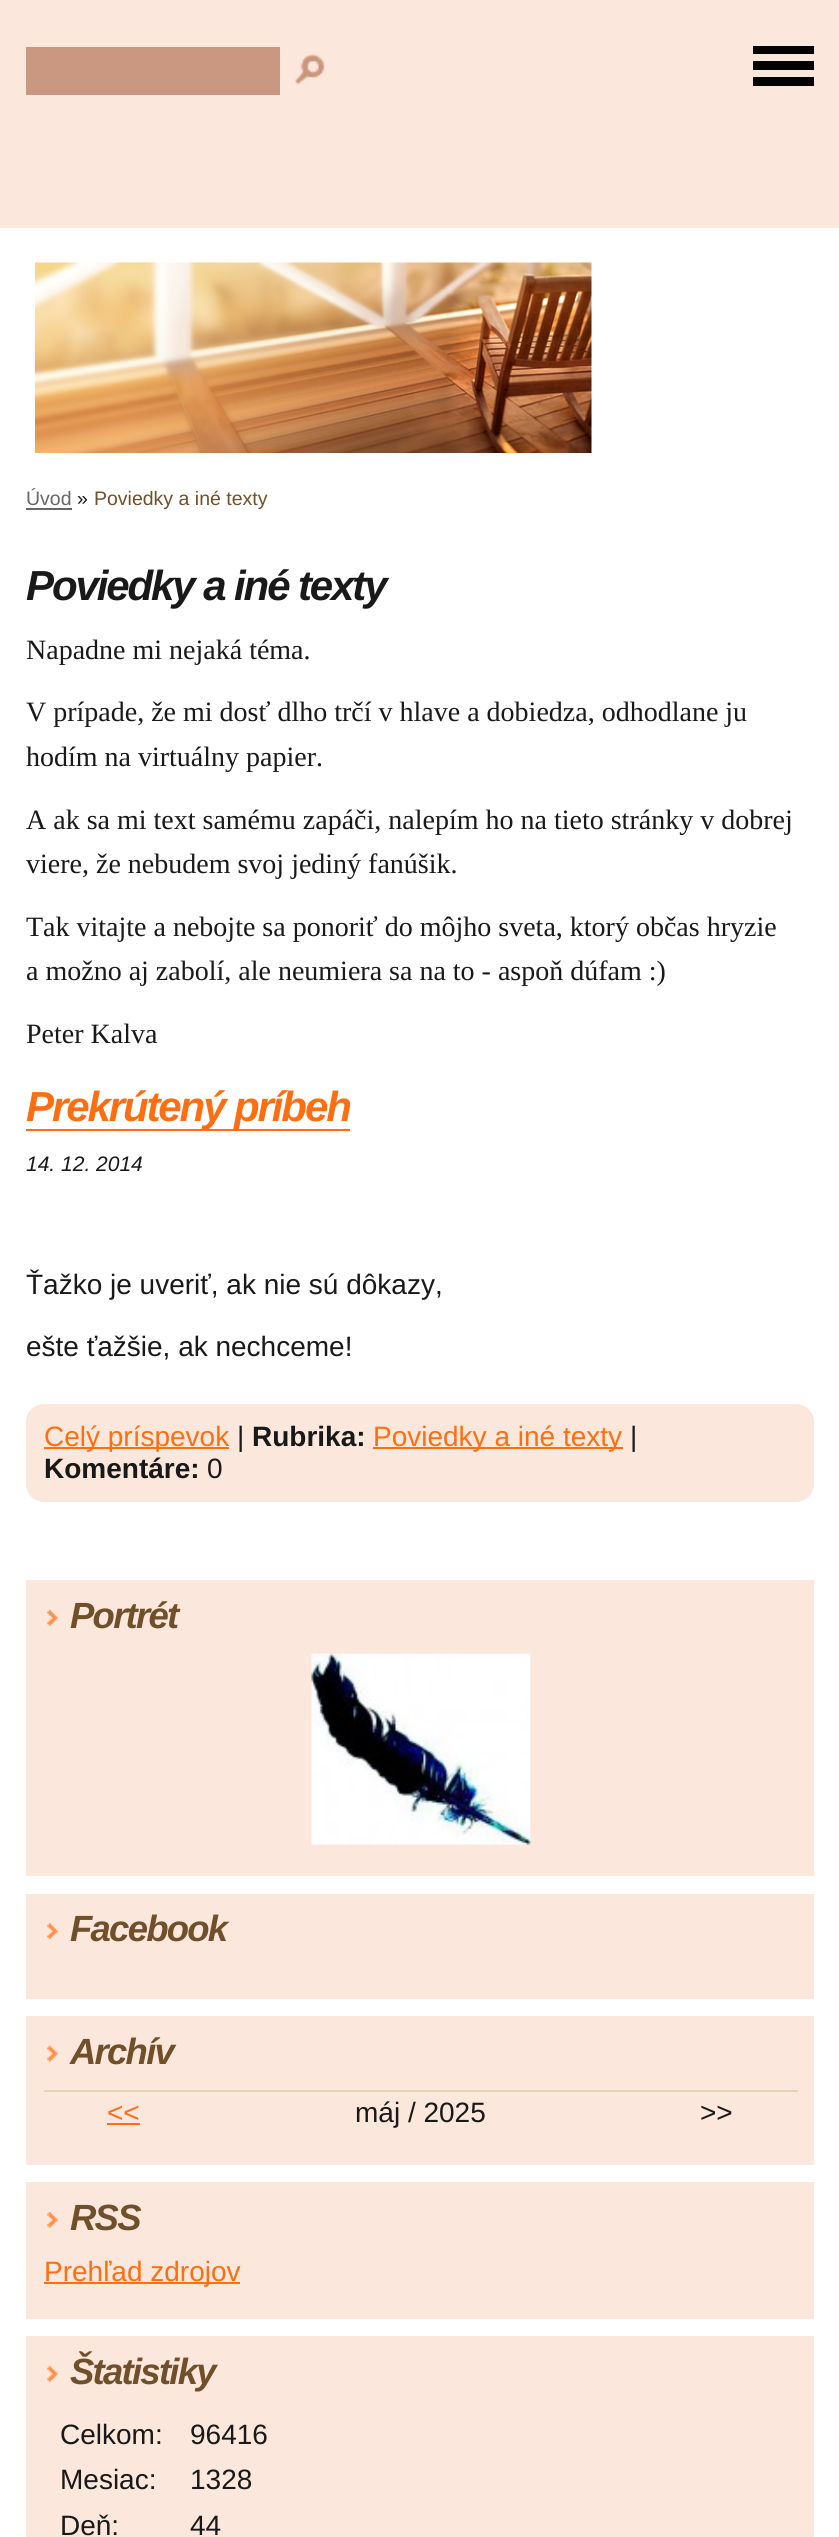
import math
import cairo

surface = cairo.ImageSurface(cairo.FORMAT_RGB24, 839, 2537)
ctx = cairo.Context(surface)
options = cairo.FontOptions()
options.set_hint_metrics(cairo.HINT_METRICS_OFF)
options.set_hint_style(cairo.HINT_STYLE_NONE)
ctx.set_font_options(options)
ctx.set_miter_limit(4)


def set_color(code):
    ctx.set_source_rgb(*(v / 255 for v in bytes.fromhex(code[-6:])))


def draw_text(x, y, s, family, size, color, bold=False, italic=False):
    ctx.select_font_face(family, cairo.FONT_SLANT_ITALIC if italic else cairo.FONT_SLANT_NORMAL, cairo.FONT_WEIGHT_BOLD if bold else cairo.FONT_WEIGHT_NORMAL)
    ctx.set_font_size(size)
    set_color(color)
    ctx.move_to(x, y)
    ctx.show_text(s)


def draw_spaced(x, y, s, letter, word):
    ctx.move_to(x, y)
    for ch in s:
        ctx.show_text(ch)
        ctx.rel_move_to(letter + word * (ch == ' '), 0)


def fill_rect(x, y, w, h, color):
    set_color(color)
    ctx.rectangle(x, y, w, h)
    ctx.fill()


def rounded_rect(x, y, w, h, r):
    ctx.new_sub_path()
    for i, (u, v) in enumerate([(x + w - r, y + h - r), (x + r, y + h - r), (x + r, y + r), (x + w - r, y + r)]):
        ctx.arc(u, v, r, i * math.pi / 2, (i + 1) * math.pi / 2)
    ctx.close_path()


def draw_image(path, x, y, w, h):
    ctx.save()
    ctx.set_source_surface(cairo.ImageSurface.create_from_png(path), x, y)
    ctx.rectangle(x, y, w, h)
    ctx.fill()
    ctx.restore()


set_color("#fce7dc")
ctx.paint()
fill_rect(0, 228, 839, 2309, "#ffffff")
fill_rect(753, 46, 61, 8, "#000000")
fill_rect(753, 61, 61, 9, "#000000")
fill_rect(753, 77, 61, 9, "#000000")
draw_image("assets/img1.png", 35, 262, 557, 191)
draw_text(26, 505, "Úvod", "Liberation Sans", 19.5, "#666666")
fill_rect(26, 508, 46, 2, "#666666")
draw_text(77, 505, "»", "Liberation Sans", 19.5, "#191919")
draw_text(94, 505, "Poviedky a iné texty", "Liberation Sans", 19.5, "#70502b")
ctx.select_font_face("Liberation Sans", cairo.FONT_SLANT_ITALIC, cairo.FONT_WEIGHT_BOLD)
ctx.set_font_size(42)
set_color("#191919")
draw_spaced(26, 600, "Poviedky a iné texty", -2.1, 0)
draw_text(26, 659, "Napadne mi nejaká téma.", "Liberation Serif", 28, "#191919")
draw_text(26, 721, "V prípade, že mi dosť dlho trčí v hlave a dobiedza, odhodlane ju", "Liberation Serif", 28, "#191919")
draw_text(26, 766, "hodím na virtuálny papier.", "Liberation Serif", 28, "#191919")
draw_text(26, 829, "A ak sa mi text samému zapáči, nalepím ho na tieto stránky v dobrej", "Liberation Serif", 28, "#191919")
draw_text(26, 873, "viere, že nebudem svoj jediný fanúšik.", "Liberation Serif", 28, "#191919")
draw_text(26, 936, "Tak vitajte a nebojte sa ponoriť do môjho sveta, ktorý občas hryzie", "Liberation Serif", 28, "#191919")
draw_text(26, 980, "a možno aj zabolí, ale neumiera sa na to - aspoň dúfam :)", "Liberation Serif", 28, "#191919")
draw_text(26, 1043, "Peter Kalva", "Liberation Serif", 28, "#191919")
fill_rect(26, 1129, 324, 2, "#ff6f12")
ctx.select_font_face("Liberation Sans", cairo.FONT_SLANT_ITALIC, cairo.FONT_WEIGHT_BOLD)
ctx.set_font_size(42)
draw_spaced(26, 1121, "Prekrútený príbeh", -2.1, 0)
draw_text(26, 1171, "14. 12. 2014", "Liberation Sans", 21, "#191919", italic=True)
draw_text(26, 1294, "Ťažko je uveriť, ak nie sú dôkazy,", "Liberation Sans", 28, "#191919")
draw_text(26, 1356, "ešte ťažšie, ak nechceme!", "Liberation Sans", 28, "#191919")
set_color("#fce7dc")
rounded_rect(26, 1404, 788, 98, 18)
ctx.fill()
fill_rect(44, 1447, 185, 2, "#ff6f12")
draw_text(44, 1446, "Celý príspevok", "Liberation Sans", 28, "#ff6f12")
draw_text(237, 1446, "|", "Liberation Sans", 28, "#191919")
draw_text(252, 1446, "Rubrika:", "Liberation Sans", 28, "#191919", bold=True)
fill_rect(373, 1447, 250, 2, "#ff6f12")
draw_text(373, 1446, "Poviedky a iné texty", "Liberation Sans", 28, "#ff6f12")
draw_text(630, 1446, "|", "Liberation Sans", 28, "#191919")
draw_text(44, 1478, "Komentáre:", "Liberation Sans", 28, "#191919", bold=True)
draw_text(207, 1478, "0", "Liberation Sans", 28, "#191919")
fill_rect(26, 47, 254, 48, "#ca9780")
draw_image("assets/img2.png", 295, 54, 30, 31)
fill_rect(26, 1580, 788, 296, "#fce7dc")
draw_image("assets/img3.png", 47, 1610, 11, 16)
ctx.select_font_face("Liberation Sans", cairo.FONT_SLANT_ITALIC, cairo.FONT_WEIGHT_BOLD)
ctx.set_font_size(36.5)
set_color("#70502b")
draw_spaced(70, 1628, "Portrét", -1.75, 0)
draw_image("assets/img4.png", 311, 1653, 220, 192)
fill_rect(26, 1894, 788, 105, "#fce7dc")
draw_image("assets/img5.png", 47, 1923, 11, 16)
set_color("#70502b")
draw_spaced(70, 1941, "Facebook", -1.75, 0)
fill_rect(26, 2016, 788, 149, "#fce7dc")
draw_image("assets/img6.png", 47, 2045, 11, 17)
set_color("#70502b")
draw_spaced(70, 2064, "Archív", -1.75, 0)
draw_text(107, 2122, "<<", "Liberation Sans", 28, "#ff6f12")
fill_rect(107, 2123, 33, 2, "#ff6f12")
draw_text(355, 2122, "máj / 2025", "Liberation Sans", 28, "#191919")
fill_rect(44, 2090, 754, 2, "#ded7b6")
draw_text(700, 2122, ">>", "Liberation Sans", 28, "#191919")
fill_rect(26, 2182, 788, 137, "#fce7dc")
draw_image("assets/img3.png", 47, 2212, 11, 16)
ctx.select_font_face("Liberation Sans", cairo.FONT_SLANT_ITALIC, cairo.FONT_WEIGHT_BOLD)
ctx.set_font_size(36.5)
set_color("#70502b")
draw_spaced(70, 2230, "RSS", -1.75, 0)
fill_rect(44, 2282, 196, 2, "#ff6f12")
draw_text(44, 2281, "Prehľad zdrojov", "Liberation Sans", 28, "#ff6f12")
fill_rect(26, 2336, 788, 201, "#fce7dc")
draw_image("assets/img3.png", 47, 2366, 11, 16)
ctx.select_font_face("Liberation Sans", cairo.FONT_SLANT_ITALIC, cairo.FONT_WEIGHT_BOLD)
ctx.set_font_size(36.5)
set_color("#70502b")
draw_spaced(70, 2384, "Štatistiky", -1.75, 0)
draw_text(60, 2444, "Celkom:", "Liberation Sans", 28, "#191919")
draw_text(190, 2444, "96416", "Liberation Sans", 28, "#191919")
draw_text(60, 2489, "Mesiac:", "Liberation Sans", 28, "#191919")
draw_text(190, 2489, "1328", "Liberation Sans", 28, "#191919")
draw_text(60, 2535, "Deň:", "Liberation Sans", 28, "#191919")
draw_text(190, 2535, "44", "Liberation Sans", 28, "#191919")
surface.write_to_png("output.png")
